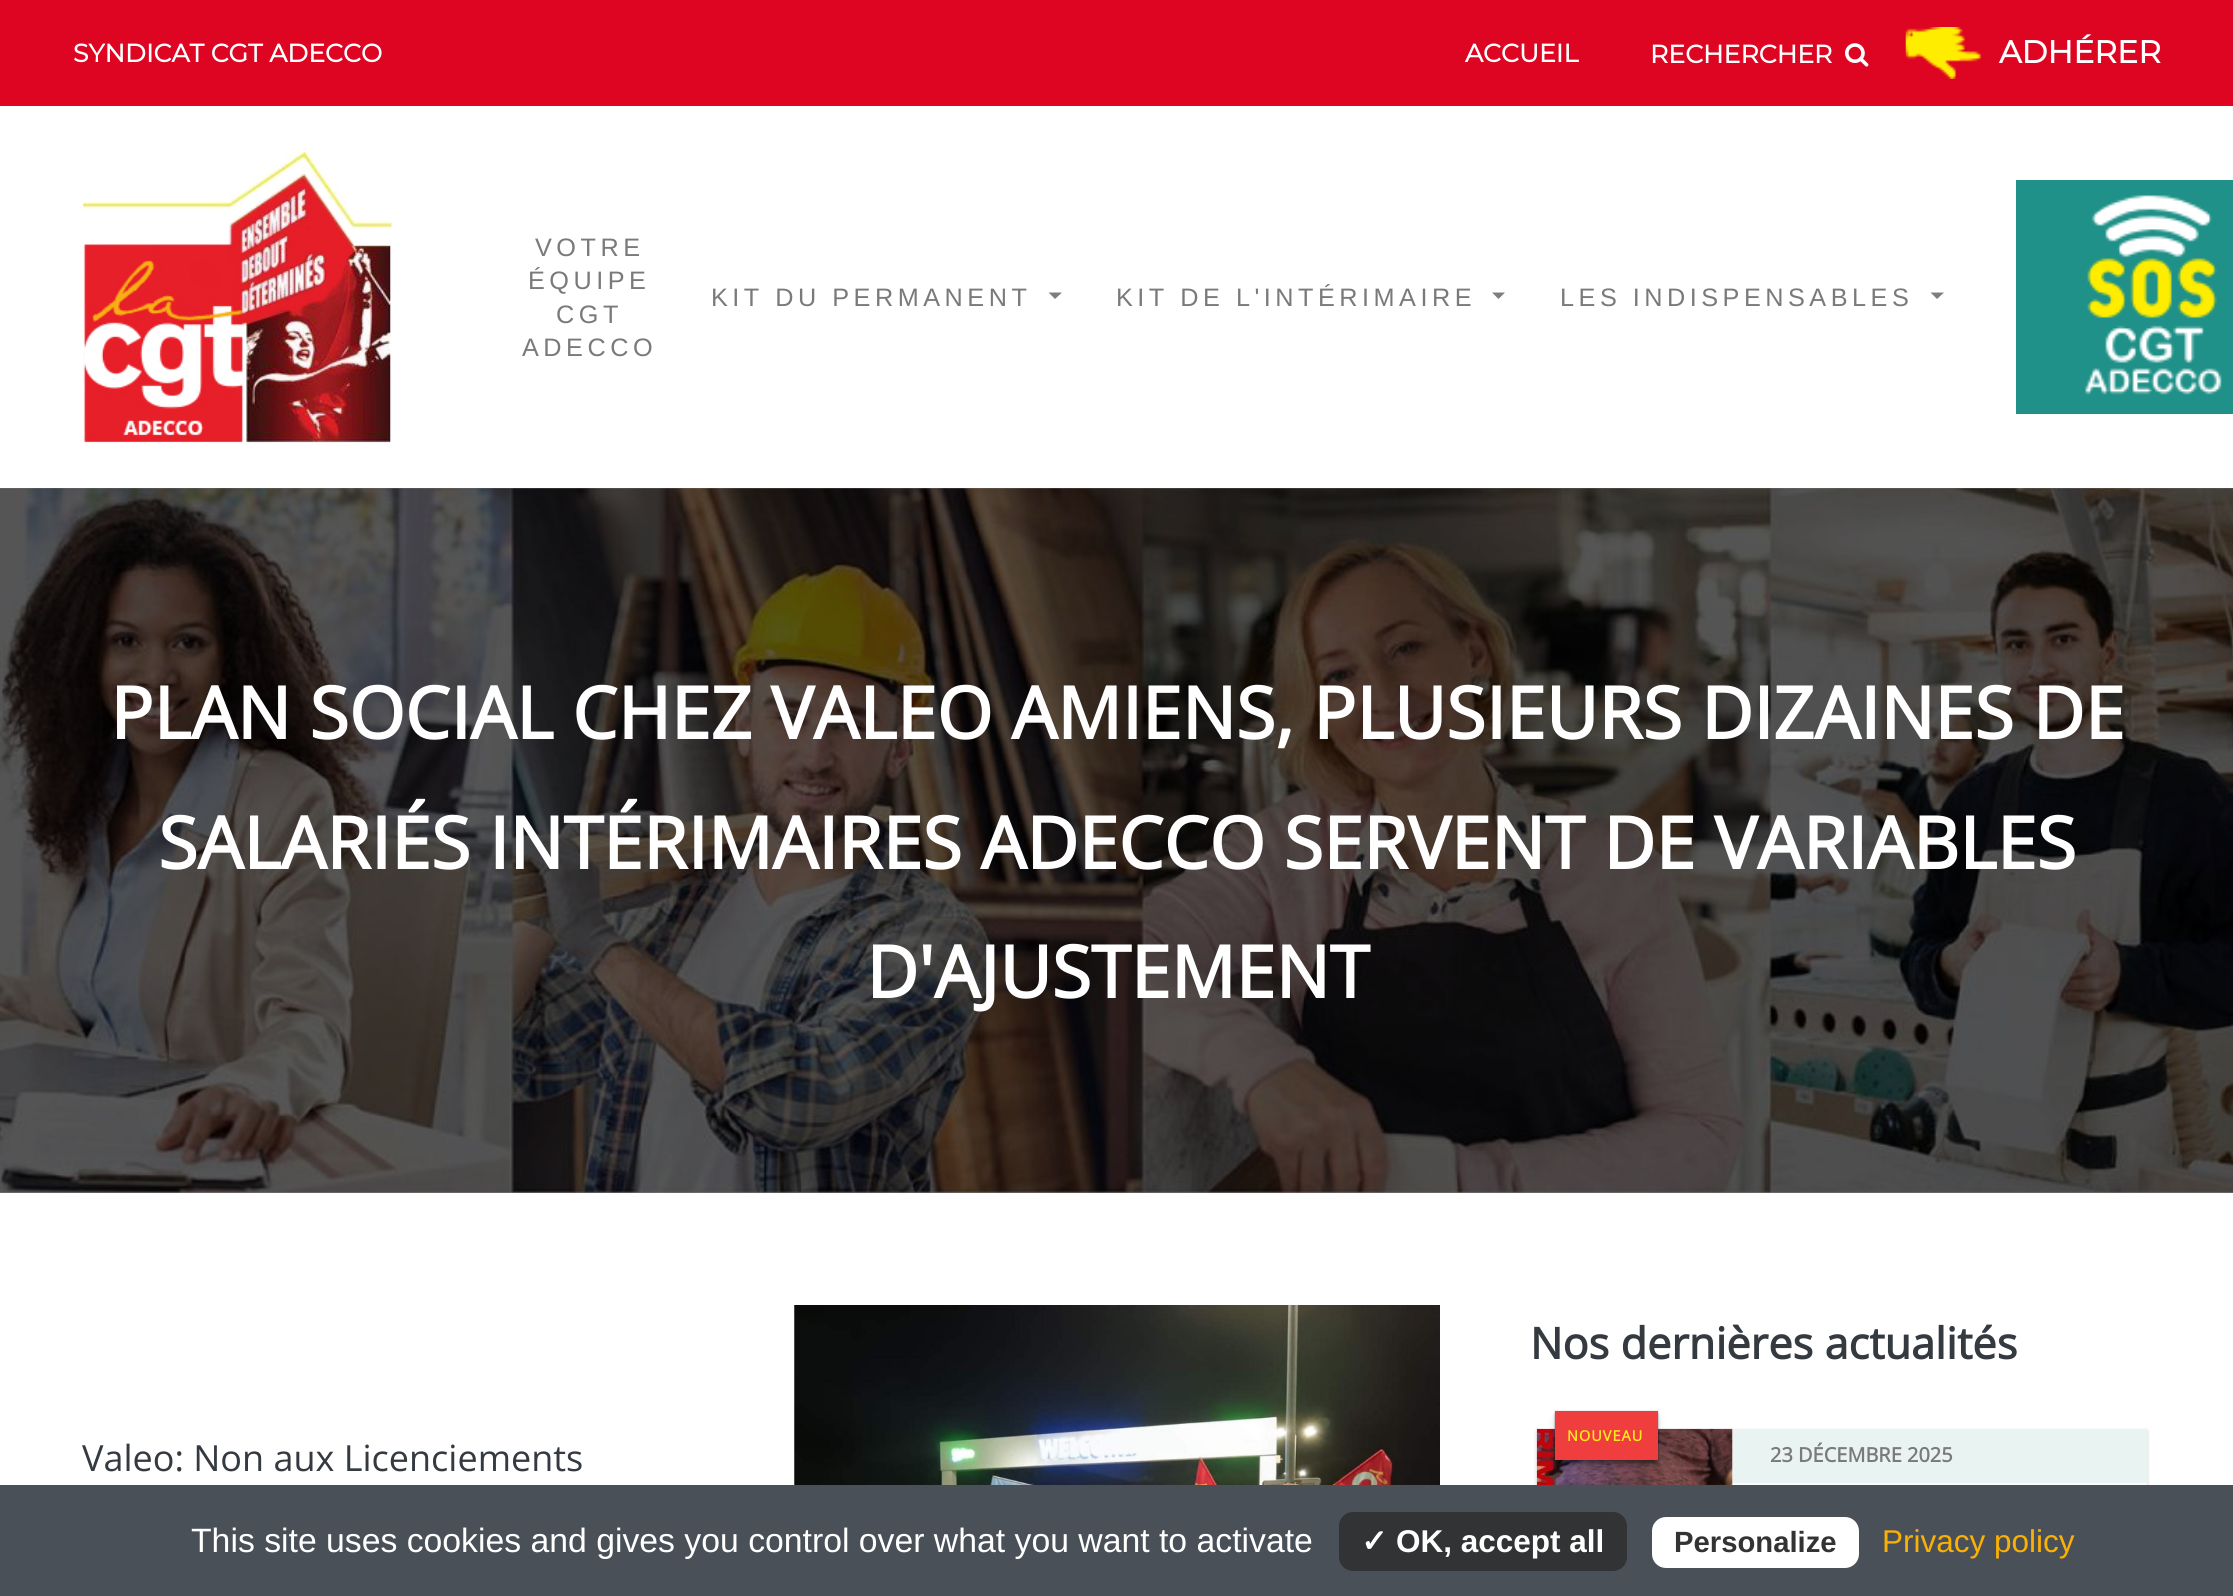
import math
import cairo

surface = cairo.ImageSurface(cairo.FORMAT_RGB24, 2233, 1596)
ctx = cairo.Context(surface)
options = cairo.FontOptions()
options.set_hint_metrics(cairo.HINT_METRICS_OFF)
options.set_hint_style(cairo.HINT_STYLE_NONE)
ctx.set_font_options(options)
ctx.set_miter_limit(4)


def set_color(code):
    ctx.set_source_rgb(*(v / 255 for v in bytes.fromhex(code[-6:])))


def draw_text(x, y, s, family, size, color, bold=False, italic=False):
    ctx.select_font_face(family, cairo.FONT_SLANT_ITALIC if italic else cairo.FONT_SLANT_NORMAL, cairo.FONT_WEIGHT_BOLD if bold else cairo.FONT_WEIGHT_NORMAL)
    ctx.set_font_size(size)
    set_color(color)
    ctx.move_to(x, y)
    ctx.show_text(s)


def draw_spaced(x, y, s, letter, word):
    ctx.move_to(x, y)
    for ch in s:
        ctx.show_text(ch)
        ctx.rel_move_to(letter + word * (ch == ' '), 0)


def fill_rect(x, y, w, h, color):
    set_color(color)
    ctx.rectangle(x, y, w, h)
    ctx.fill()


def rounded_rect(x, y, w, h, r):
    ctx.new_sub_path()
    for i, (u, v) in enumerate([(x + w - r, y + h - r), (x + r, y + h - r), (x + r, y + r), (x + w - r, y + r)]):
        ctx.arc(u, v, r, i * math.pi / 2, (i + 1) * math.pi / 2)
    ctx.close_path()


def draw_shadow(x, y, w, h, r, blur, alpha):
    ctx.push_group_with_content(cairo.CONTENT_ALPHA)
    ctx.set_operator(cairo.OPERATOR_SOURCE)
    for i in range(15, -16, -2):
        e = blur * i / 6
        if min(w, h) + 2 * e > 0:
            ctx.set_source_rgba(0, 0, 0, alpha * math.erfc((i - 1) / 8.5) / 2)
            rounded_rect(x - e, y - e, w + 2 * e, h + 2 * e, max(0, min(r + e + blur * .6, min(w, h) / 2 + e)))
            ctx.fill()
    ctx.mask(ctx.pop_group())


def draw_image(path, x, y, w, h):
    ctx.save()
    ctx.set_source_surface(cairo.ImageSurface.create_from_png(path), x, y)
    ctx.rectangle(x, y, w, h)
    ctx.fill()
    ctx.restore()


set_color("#ffffff")
ctx.paint()
fill_rect(0, 488, 2233, 705, "#808080")
fill_rect(0, 0, 2233, 106, "#dd0522")
draw_text(73, 62, "SYNDICAT CGT ADECCO", "Montserrat", 25.25, "#ffffff", bold=True)
draw_text(1465, 62, "ACCUEIL", "Montserrat", 25.25, "#ffffff", bold=True)
draw_text(1650, 63, "RECHERCHER", "Montserrat", 25.25, "#ffffff", bold=True)
draw_image("assets/img1.png", 1845, 43, 24, 24)
draw_image("assets/img2.png", 1905, 27, 77, 52)
draw_text(1999, 63, "ADHÉRER", "Montserrat", 31.5, "#ffffff", bold=True)
draw_image("assets/img3.png", 83, 152, 309, 291)
ctx.select_font_face("Liberation Sans")
ctx.set_font_size(25.25)
set_color("#7b7979")
draw_spaced(535, 256, "VOTRE", 4.5, 0)
draw_spaced(528, 289, "ÉQUIPE", 4.5, 0)
draw_spaced(556, 323, "CGT", 4.5, 0)
draw_spaced(522, 356, "ADECCO", 4.5, 0)
draw_spaced(711, 306, "KIT DU PERMANENT", 4.5, 0)
set_color("#7d7d7d")
ctx.new_path()
ctx.move_to(1048.5, 292.5)
ctx.line_to(1062, 292.5)
ctx.line_to(1055, 299)
ctx.close_path()
ctx.fill()
set_color("#7b7979")
draw_spaced(1116, 306, "KIT DE L'INTÉRIMAIRE", 4.5, 0)
set_color("#7d7d7d")
ctx.new_path()
ctx.move_to(1492, 292.5)
ctx.line_to(1505, 292.5)
ctx.line_to(1498.5, 299)
ctx.close_path()
ctx.fill()
set_color("#7b7979")
draw_spaced(1560, 306, "LES INDISPENSABLES", 4.5, 0)
set_color("#7d7d7d")
ctx.new_path()
ctx.move_to(1930.5, 292.5)
ctx.line_to(1944, 292.5)
ctx.line_to(1937, 299)
ctx.close_path()
ctx.fill()
draw_image("assets/img4.png", 2016, 180, 217, 234)
draw_image("assets/img5.png", 0, 488, 2233, 705)
draw_text(110, 739, "PLAN SOCIAL CHEZ VALEO AMIENS, PLUSIEURS DIZAINES DE", "Open Sans", 72, "#ffffff", bold=True)
draw_text(158, 869, "SALARIÉS INTÉRIMAIRES ADECCO SERVENT DE VARIABLES", "Open Sans", 72, "#ffffff", bold=True)
draw_text(866, 998, "D'AJUSTEMENT", "Open Sans", 72, "#ffffff", bold=True)
draw_text(82, 1471, "Valeo: Non aux Licenciements", "Open Sans", 36, "#343a40")
draw_image("assets/img6.png", 794, 1305, 646, 180)
draw_text(1530, 1359, "Nos dernières actualités", "Open Sans", 43.25, "#343a40", bold=True)
set_color("#000000")
draw_shadow(1537, 1431, 610, 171, 0, 2, 0.2)
fill_rect(1732, 1429, 1, 56, "#efeff0")
draw_image("assets/img7.png", 1536, 1428, 197, 57)
set_color("#000000")
draw_shadow(1555, 1420, 103, 49, 0, 4.5, 0.1)
draw_shadow(1555, 1415, 103, 50, 0, 2, 0.15)
draw_shadow(1555, 1413, 103, 50, 0, 1, 0.2)
draw_shadow(1555, 1411, 103, 49, 0, 0.5, 0.25)
fill_rect(1555, 1411, 103, 49, "#f03e3e")
ctx.set_font_size(14.5)
set_color("#feeb1a")
draw_spaced(1567, 1441, "NOUVEAU", 1, 0)
fill_rect(1733, 1483, 414, 2, "#fcfcfc")
fill_rect(1733, 1429, 414, 54, "#e8f3f2")
draw_text(1770, 1462, "23 DÉCEMBRE 2025", "Open Sans", 20, "#7b7979", bold=True)
fill_rect(0, 1485, 2233, 111, "#495058")
draw_text(191, 1552, "This site uses cookies and gives you control over what you want to activate", "Liberation Sans", 33.75, "#ffffff")
set_color("#323334")
rounded_rect(1339, 1512, 288, 59, 14)
ctx.fill()
draw_text(1361, 1552, "✓", "DejaVu Sans", 31.5, "#ffffff", bold=True)
draw_text(1396, 1552, "OK, accept all", "Liberation Sans", 31.5, "#ffffff", bold=True)
rounded_rect(1652, 1517, 207, 51, 14)
ctx.fill()
draw_text(1674, 1552, "Personalize", "Liberation Sans", 29.25, "#333333", bold=True)
draw_text(1882, 1552, "Privacy policy", "Liberation Sans", 31.5, "#fab005")
surface.write_to_png("output.png")
